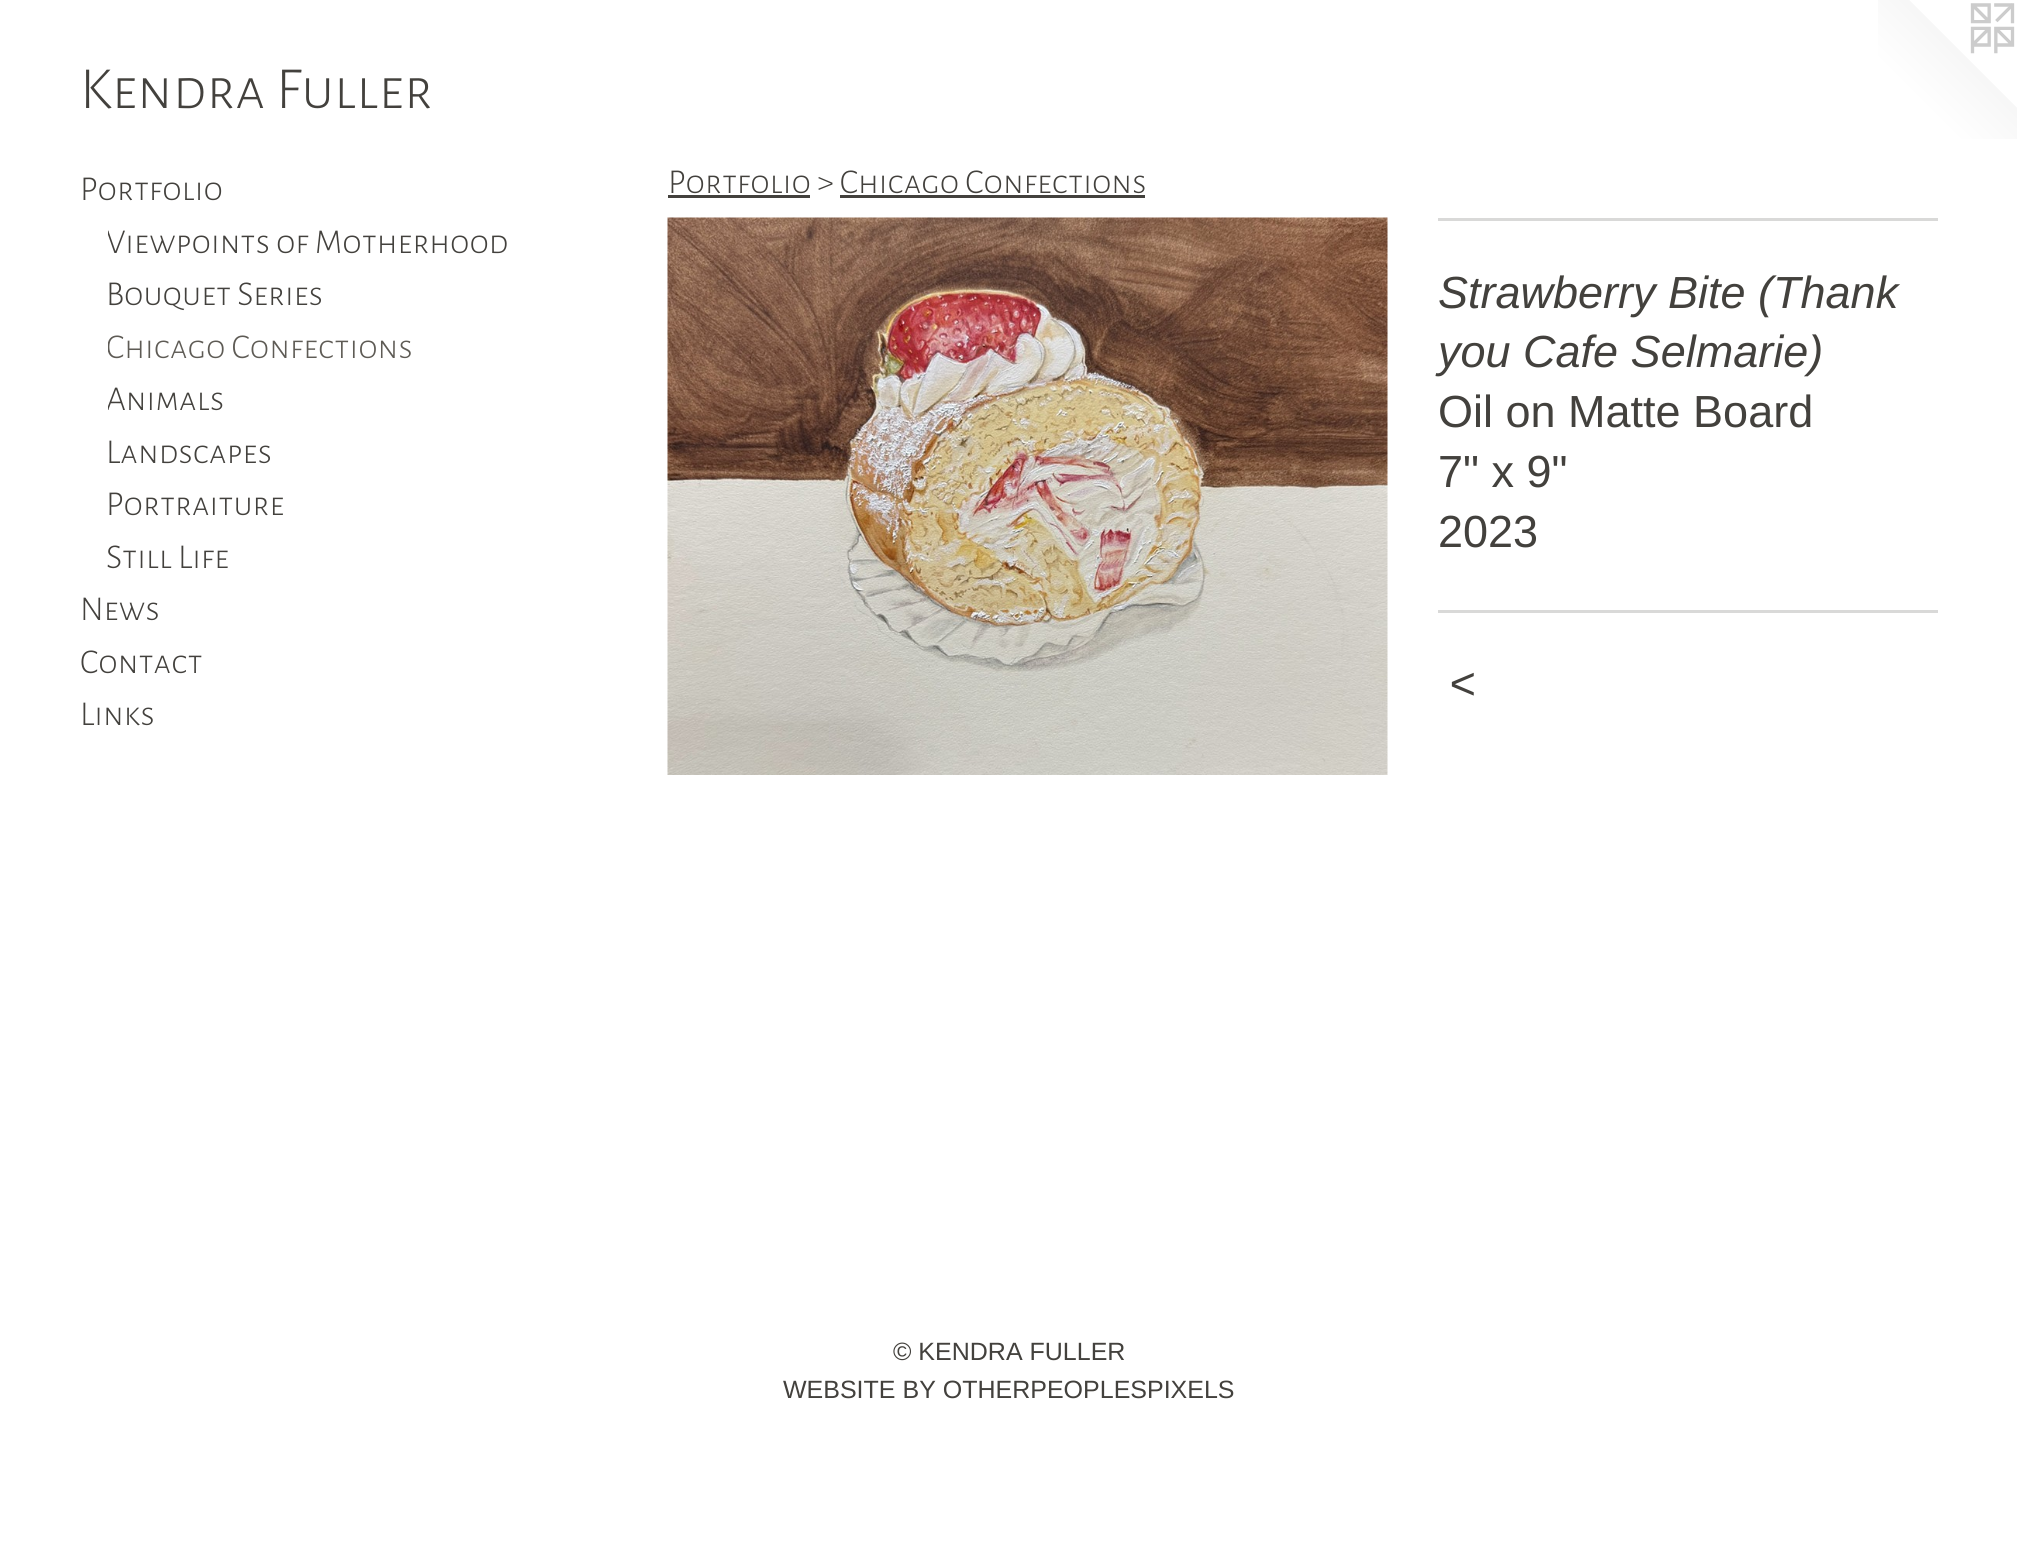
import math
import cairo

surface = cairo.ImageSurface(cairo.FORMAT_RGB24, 2017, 1551)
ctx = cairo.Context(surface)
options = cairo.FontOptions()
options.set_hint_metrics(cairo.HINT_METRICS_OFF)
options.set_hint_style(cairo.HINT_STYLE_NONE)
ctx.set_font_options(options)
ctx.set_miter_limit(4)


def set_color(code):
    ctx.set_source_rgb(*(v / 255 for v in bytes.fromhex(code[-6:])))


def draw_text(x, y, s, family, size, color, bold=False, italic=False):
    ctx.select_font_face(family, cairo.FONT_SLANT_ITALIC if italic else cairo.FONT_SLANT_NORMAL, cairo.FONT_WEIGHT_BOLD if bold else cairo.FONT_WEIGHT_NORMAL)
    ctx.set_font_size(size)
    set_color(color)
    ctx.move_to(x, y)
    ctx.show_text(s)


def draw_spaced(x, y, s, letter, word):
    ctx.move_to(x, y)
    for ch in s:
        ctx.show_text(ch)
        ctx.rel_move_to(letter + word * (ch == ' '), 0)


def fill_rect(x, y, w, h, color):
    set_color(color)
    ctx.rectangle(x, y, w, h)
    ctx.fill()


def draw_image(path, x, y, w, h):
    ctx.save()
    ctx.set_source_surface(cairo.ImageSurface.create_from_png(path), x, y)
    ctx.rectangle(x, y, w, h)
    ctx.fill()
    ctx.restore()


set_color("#ffffff")
ctx.paint()
draw_text(80, 108, "Kendra Fuller", "Alegreya Sans SC Light", 60, "#43413d")
draw_image("assets/img1.png", 1878, 0, 139, 139)
draw_text(80, 200, "Portfolio", "Alegreya Sans SC Light", 35, "#43413d")
ctx.save()
ctx.rectangle(108, 218, 472, 52)
ctx.clip()
draw_text(106, 253, "Viewpoints of Motherhood", "Alegreya Sans SC Light", 35, "#43413d")
ctx.restore()
draw_text(106, 305, "Bouquet Series", "Alegreya Sans SC Light", 35, "#43413d")
ctx.save()
ctx.rectangle(108, 323, 472, 52)
ctx.clip()
draw_text(106, 358, "Chicago Confections", "Alegreya Sans SC Light", 35, "#5e5b55")
ctx.restore()
ctx.save()
ctx.rectangle(108, 375, 472, 53)
ctx.clip()
draw_text(106, 410, "Animals", "Alegreya Sans SC Light", 35, "#43413d")
ctx.restore()
draw_text(106, 463, "Landscapes", "Alegreya Sans SC Light", 35, "#43413d")
draw_text(106, 515, "Portraiture", "Alegreya Sans SC Light", 35, "#43413d")
draw_text(106, 568, "Still Life", "Alegreya Sans SC Light", 35, "#43413d")
draw_text(80, 620, "News", "Alegreya Sans SC Light", 35, "#43413d")
draw_text(80, 673, "Contact", "Alegreya Sans SC Light", 35, "#43413d")
draw_text(80, 725, "Links", "Alegreya Sans SC Light", 35, "#43413d")
draw_text(668, 193, "Portfolio > Chicago Confections", "Alegreya Sans SC Light", 35, "#43413d")
fill_rect(668, 195, 142, 3, "#43413d")
fill_rect(840, 195, 305, 3, "#43413d")
draw_image("assets/img2.png", 667, 217, 721, 558)
fill_rect(1438, 218, 500, 3, "#d9d9d8")
draw_text(1438, 308, "Strawberry Bite (Thank", "Liberation Sans", 45, "#43413d", italic=True)
draw_text(1438, 367, "you Cafe Selmarie)", "Liberation Sans", 45, "#43413d", italic=True)
draw_text(1438, 427, "Oil on Matte Board", "Liberation Sans", 45, "#43413d")
draw_text(1438, 487, "7\" x 9\"", "Liberation Sans", 45, "#43413d")
draw_text(1438, 547, "2023", "Liberation Sans", 45, "#43413d")
fill_rect(1438, 610, 500, 3, "#d9d9d8")
ctx.select_font_face("Liberation Sans", cairo.FONT_SLANT_ITALIC)
set_color("#43413d")
draw_spaced(1449, 699, "<", 2, 0)
draw_text(893, 1360, "© KENDRA FULLER", "Liberation Sans", 25, "#43413d")
draw_text(783, 1398, "WEBSITE BY OTHERPEOPLESPIXELS", "Liberation Sans", 25, "#43413d")
surface.write_to_png("output.png")
